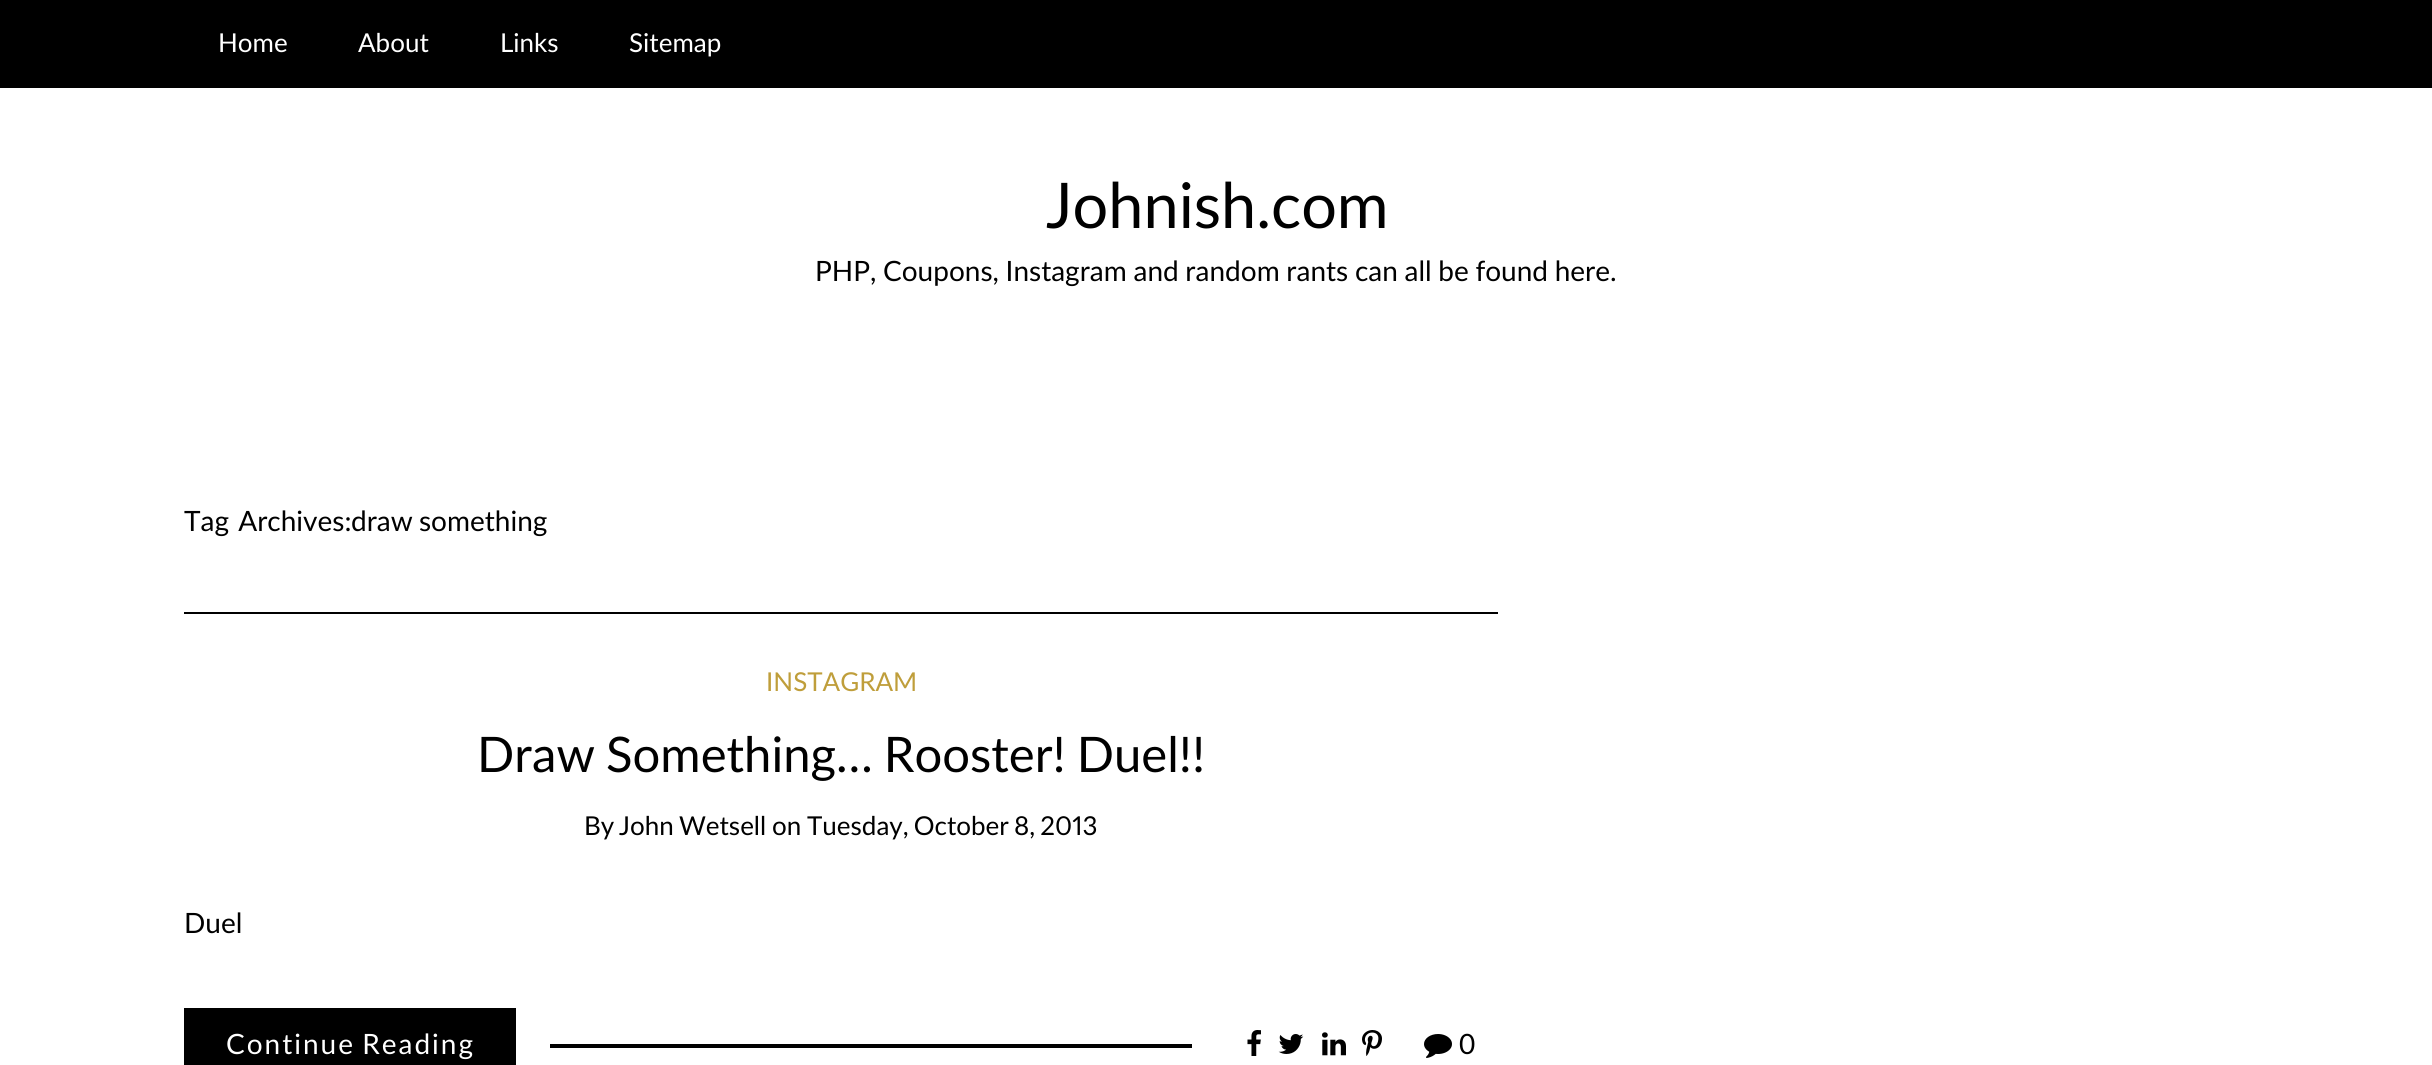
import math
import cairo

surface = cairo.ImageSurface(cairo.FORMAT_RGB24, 2432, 1065)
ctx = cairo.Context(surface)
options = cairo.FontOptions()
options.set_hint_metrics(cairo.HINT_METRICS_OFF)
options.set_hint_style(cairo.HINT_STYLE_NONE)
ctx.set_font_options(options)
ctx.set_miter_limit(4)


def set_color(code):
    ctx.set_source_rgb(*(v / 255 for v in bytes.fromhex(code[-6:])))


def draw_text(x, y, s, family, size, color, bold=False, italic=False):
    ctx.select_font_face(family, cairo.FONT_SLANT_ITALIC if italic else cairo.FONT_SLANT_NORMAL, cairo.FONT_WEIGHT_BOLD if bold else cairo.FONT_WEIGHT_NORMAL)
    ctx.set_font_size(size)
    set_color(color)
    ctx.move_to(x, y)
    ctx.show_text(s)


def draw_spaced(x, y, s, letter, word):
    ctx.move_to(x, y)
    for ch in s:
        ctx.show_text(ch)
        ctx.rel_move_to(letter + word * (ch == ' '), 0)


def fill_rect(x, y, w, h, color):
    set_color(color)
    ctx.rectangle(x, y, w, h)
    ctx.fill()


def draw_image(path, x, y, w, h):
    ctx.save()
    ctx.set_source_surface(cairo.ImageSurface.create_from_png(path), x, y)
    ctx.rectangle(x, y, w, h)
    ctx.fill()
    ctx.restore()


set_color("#ffffff")
ctx.paint()
fill_rect(0, 0, 2432, 88, "#000000")
draw_text(218, 52, "Home", "Lato", 26, "#ffffff")
draw_text(358, 52, "About", "Lato", 26, "#ffffff")
draw_text(500, 52, "Links", "Lato", 26, "#ffffff")
draw_text(629, 52, "Sitemap", "Lato", 26, "#ffffff")
draw_text(1046, 228, "Johnish.com", "Lato", 63, "#000000")
ctx.set_font_size(28)
draw_spaced(815, 281, "PHP, Coupons, Instagram and random rants can all be found here.", 0, -0.5)
fill_rect(184, 612, 1314, 2, "#000000")
draw_spaced(184, 531, "Tag Archives:", 0, 2)
draw_spaced(351, 531, "draw something", 0, -1)
draw_text(766, 691, "INSTAGRAM", "Lato", 26, "#bf9e3b")
ctx.set_font_size(49)
set_color("#000000")
draw_spaced(477, 772, "Draw Something… Rooster! Duel!!", 0, -1.5)
draw_text(584, 835, "By", "Lato", 26, "#000000")
draw_spaced(619, 835, "John Wetsell", 0, -1.5)
draw_text(772, 835, "on", "Lato", 26, "#000000")
ctx.select_font_face("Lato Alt")
draw_spaced(807, 835, "Tuesday, October 8, 2013", 0, -1.5)
draw_text(184, 933, "Duel", "Lato", 28, "#000000")
fill_rect(184, 1008, 332, 57, "#000000")
set_color("#ffffff")
draw_spaced(226, 1054, "Continue Reading", 2, -2)
fill_rect(550, 1044, 642, 4, "#000000")
draw_image("assets/img1.png", 1247, 1030, 14, 26)
draw_image("assets/img2.png", 1278, 1034, 26, 20)
draw_image("assets/img3.png", 1322, 1032, 24, 24)
draw_image("assets/img4.png", 1362, 1030, 20, 26)
draw_image("assets/img5.png", 1424, 1034, 28, 24)
draw_text(1459, 1054, "0", "Lato", 28, "#000000")
surface.write_to_png("output.png")
